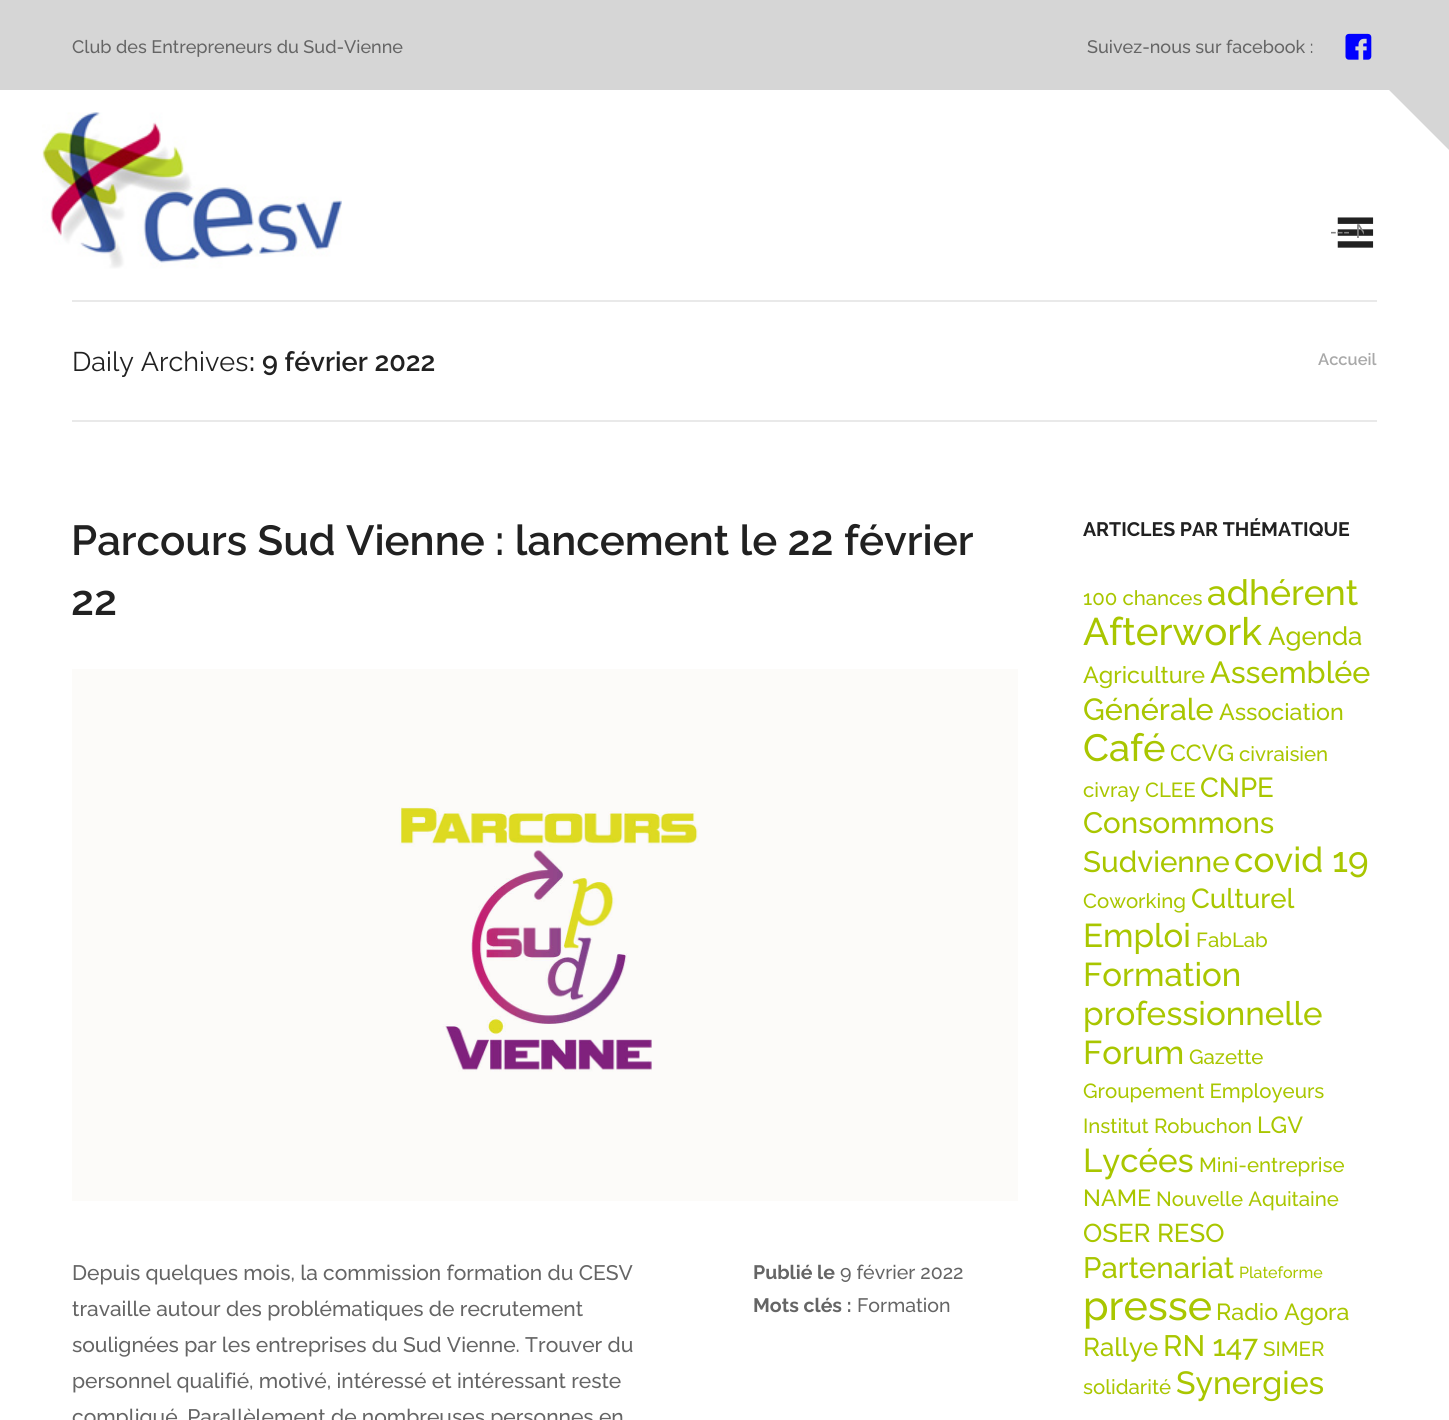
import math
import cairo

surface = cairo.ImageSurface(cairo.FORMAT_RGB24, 1449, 1420)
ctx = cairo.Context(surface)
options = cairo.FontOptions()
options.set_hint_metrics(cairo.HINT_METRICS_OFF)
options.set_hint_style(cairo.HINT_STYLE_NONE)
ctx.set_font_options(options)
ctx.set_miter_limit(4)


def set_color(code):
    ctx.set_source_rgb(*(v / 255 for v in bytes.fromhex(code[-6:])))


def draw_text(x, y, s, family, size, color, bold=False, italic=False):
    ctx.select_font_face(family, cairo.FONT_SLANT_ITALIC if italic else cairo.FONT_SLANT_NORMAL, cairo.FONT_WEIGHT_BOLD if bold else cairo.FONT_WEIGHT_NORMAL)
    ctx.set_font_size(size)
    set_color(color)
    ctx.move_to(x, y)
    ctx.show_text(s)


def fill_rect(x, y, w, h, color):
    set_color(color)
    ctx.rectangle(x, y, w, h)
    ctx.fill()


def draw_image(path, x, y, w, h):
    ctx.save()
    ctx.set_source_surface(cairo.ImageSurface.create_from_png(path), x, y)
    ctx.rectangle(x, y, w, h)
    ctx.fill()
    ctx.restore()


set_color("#d6d6d6")
ctx.paint()
draw_text(72, 53, "Club des Entrepreneurs du Sud-Vienne", "Raleway Medium", 18, "#656565")
draw_text(1087, 53, "Suivez-nous sur facebook :", "Raleway Medium", 18, "#656565")
draw_image("assets/img1.png", 1345, 33, 27, 27)
set_color("#ffffff")
ctx.new_path()
ctx.move_to(1449, 150)
ctx.line_to(0, 150)
ctx.line_to(0, 90)
ctx.line_to(1389, 90)
ctx.close_path()
ctx.fill()
fill_rect(0, 150, 1449, 1270, "#ffffff")
fill_rect(72, 300, 1305, 2, "#e9e9e9")
draw_image("assets/img2.png", 42, 112, 300, 157)
draw_image("assets/img3.png", 1337, 217, 37, 31)
ctx.save()
ctx.rectangle(1331, 219, 33, 26)
ctx.clip()
draw_text(1330, 238, "--- N", "Liberation Sans", 20, "#828282")
ctx.restore()
fill_rect(72, 420, 1305, 2, "#e9e9e9")
draw_text(72, 371, "Daily Archives", "Raleway", 27, "#212121")
draw_text(249, 371, ":", "Raleway SemiBold", 27, "#212121")
draw_text(262, 371, "9 février 2022", "Raleway SemiBold", 27, "#212121")
draw_text(1318, 365, "Accueil", "Raleway SemiBold", 16.5, "#a9a9a9")
draw_text(71, 555, "Parcours Sud Vienne : lancement le 22 février", "Raleway SemiBold", 42, "#212121")
draw_text(71, 615, "22", "Raleway SemiBold", 42, "#212121")
draw_image("assets/img4.png", 72, 669, 946, 532)
draw_text(72, 1280, "Depuis quelques mois, la commission formation du CESV", "Raleway Medium", 21, "#656565")
draw_text(72, 1316, "travaille autour des problématiques de recrutement", "Raleway Medium", 21, "#656565")
draw_text(72, 1352, "soulignées par les entreprises du Sud Vienne. Trouver du", "Raleway Medium", 21, "#656565")
draw_text(72, 1388, "personnel qualifié, motivé, intéressé et intéressant reste", "Raleway Medium", 21, "#656565")
draw_text(72, 1424, "compliqué. Parallèlement de nombreuses personnes en", "Raleway Medium", 21, "#656565")
draw_text(753, 1279, "Publié le", "Raleway", 19.5, "#656565", bold=True)
draw_text(840, 1279, "9 février 2022", "Raleway Medium", 19.5, "#656565")
draw_text(753, 1312, "Mots clés :", "Raleway", 19.5, "#656565", bold=True)
draw_text(857, 1312, "Formation", "Raleway Medium", 19.5, "#656565")
draw_text(1083, 536, "ARTICLES PAR THÉMATIQUE", "Raleway", 19.5, "#212121", bold=True)
draw_text(1083, 605, "100 chances", "Raleway Medium", 20.4, "#a9c600")
draw_text(1207, 605, "adhérent", "Raleway Medium", 35.5, "#a9c600")
draw_text(1083, 645, "Afterwork", "Raleway Medium", 38.5, "#a9c600")
draw_text(1268, 645, "Agenda", "Raleway Medium", 25.75, "#a9c600")
draw_text(1083, 683, "Agriculture", "Raleway Medium", 23.25, "#a9c600")
draw_text(1210, 683, "Assemblée", "Raleway Medium", 30.5, "#a9c600")
draw_text(1083, 720, "Générale", "Raleway Medium", 30.5, "#a9c600")
draw_text(1219, 720, "Association", "Raleway Medium", 23.25, "#a9c600")
draw_text(1083, 761, "Café", "Raleway Medium", 38, "#a9c600")
draw_text(1170, 761, "CCVG", "Raleway Medium", 23.25, "#a9c600")
draw_text(1239, 761, "civraisien", "Raleway Medium", 20.4, "#a9c600")
draw_text(1083, 797, "civray CLEE", "Raleway Medium", 20.4, "#a9c600")
draw_text(1200, 797, "CNPE", "Raleway Medium", 27.5, "#a9c600")
draw_text(1083, 833, "Consommons", "Raleway Medium", 29.5, "#a9c600")
draw_text(1083, 872, "Sudvienne", "Raleway Medium", 29.5, "#a9c600")
draw_text(1234, 872, "covid 19", "Raleway Medium", 35, "#a9c600")
draw_text(1083, 908, "Coworking", "Raleway Medium", 20.4, "#a9c600")
draw_text(1191, 908, "Culturel", "Raleway Medium", 27.5, "#a9c600")
draw_text(1083, 947, "Emploi", "Raleway Medium", 33, "#a9c600")
draw_text(1196, 947, "FabLab", "Raleway Medium", 20.4, "#a9c600")
draw_text(1083, 986, "Formation", "Raleway Medium", 33, "#a9c600")
draw_text(1083, 1025, "professionnelle", "Raleway Medium", 33, "#a9c600")
draw_text(1083, 1064, "Forum", "Raleway Medium", 33, "#a9c600")
draw_text(1189, 1064, "Gazette", "Raleway Medium", 20.4, "#a9c600")
draw_text(1083, 1098, "Groupement Employeurs", "Raleway Medium", 20.4, "#a9c600")
draw_text(1083, 1133, "Institut Robuchon", "Raleway Medium", 20.4, "#a9c600")
draw_text(1257, 1133, "LGV", "Raleway Medium", 23.25, "#a9c600")
draw_text(1083, 1172, "Lycées", "Raleway Medium", 33, "#a9c600")
draw_text(1199, 1172, "Mini-entreprise", "Raleway Medium", 20.4, "#a9c600")
draw_text(1083, 1206, "NAME", "Raleway Medium", 23.25, "#a9c600")
draw_text(1156, 1206, "Nouvelle Aquitaine", "Raleway Medium", 20.4, "#a9c600")
draw_text(1083, 1242, "OSER RESO", "Raleway Medium", 25.75, "#a9c600")
draw_text(1083, 1278, "Partenariat", "Raleway Medium", 29.5, "#a9c600")
draw_text(1239, 1278, "Plateforme", "Raleway Medium", 16, "#a9c600")
draw_text(1083, 1320, "presse", "Raleway Medium", 41, "#a9c600")
draw_text(1216, 1320, "Radio Agora", "Raleway Medium", 23.25, "#a9c600")
draw_text(1083, 1356, "Rallye", "Raleway Medium", 25.75, "#a9c600")
draw_text(1163, 1356, "RN 147", "Raleway Medium", 29.5, "#a9c600")
draw_text(1263, 1356, "SIMER", "Raleway Medium", 20.4, "#a9c600")
draw_text(1083, 1394, "solidarité", "Raleway Medium", 20.4, "#a9c600")
draw_text(1176, 1394, "Synergies", "Raleway Medium", 32, "#a9c600")
surface.write_to_png("output.png")
